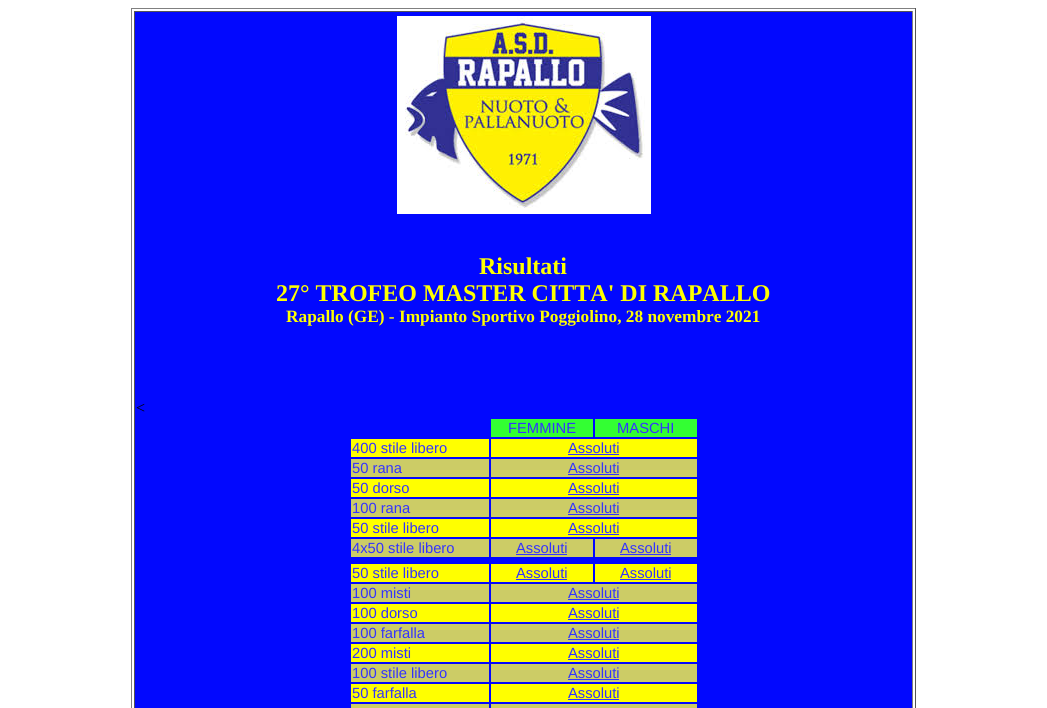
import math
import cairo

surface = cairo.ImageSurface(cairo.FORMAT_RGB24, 1047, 708)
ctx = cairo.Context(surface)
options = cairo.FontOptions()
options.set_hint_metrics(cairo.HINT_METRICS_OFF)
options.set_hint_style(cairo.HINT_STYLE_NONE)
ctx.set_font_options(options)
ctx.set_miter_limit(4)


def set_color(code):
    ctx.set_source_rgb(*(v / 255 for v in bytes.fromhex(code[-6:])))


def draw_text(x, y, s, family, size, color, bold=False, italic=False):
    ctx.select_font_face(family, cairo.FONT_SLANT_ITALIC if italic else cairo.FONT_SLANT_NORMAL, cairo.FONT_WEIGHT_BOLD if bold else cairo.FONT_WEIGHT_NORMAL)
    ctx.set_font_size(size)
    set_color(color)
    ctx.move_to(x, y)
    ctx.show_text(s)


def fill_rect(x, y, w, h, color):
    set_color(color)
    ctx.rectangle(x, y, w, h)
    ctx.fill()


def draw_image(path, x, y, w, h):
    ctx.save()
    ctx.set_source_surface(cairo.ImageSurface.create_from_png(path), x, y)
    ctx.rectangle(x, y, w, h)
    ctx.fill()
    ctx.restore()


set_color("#ffffff")
ctx.paint()
fill_rect(131, 8, 785, 1, "#808080")
fill_rect(915, 8, 1, 700, "#555555")
fill_rect(131, 8, 1, 700, "#808080")
fill_rect(135, 12, 777, 696, "#0208fe")
fill_rect(134, 11, 779, 1, "#555555")
fill_rect(912, 11, 1, 697, "#808080")
fill_rect(134, 11, 1, 697, "#555555")
draw_image("assets/img1.png", 397, 16, 254, 198)
draw_text(479, 274, "Risultati", "Liberation Serif", 24, "#ffff00", bold=True)
draw_text(276, 301, "27° TROFEO MASTER CITTA' DI RAPALLO", "Liberation Serif", 24, "#ffff00", bold=True)
draw_text(286, 322, "Rapallo (GE) - Impianto Sportivo Poggiolino, 28 novembre 2021", "Liberation Serif", 17.3, "#ffff00", bold=True)
draw_text(136, 413, "<", "Liberation Serif", 16, "#000000")
fill_rect(491, 419, 102, 18, "#33ff33")
draw_text(508, 433, "FEMMINE", "Liberation Sans", 14.75, "#3333ff")
fill_rect(595, 419, 102, 18, "#33ff33")
draw_text(617, 433, "MASCHI", "Liberation Sans", 14.75, "#3333ff")
fill_rect(351, 439, 138, 18, "#ffff00")
draw_text(352, 453, "400 stile libero", "Liberation Sans", 14.75, "#3333ff")
fill_rect(491, 439, 206, 18, "#ffff00")
draw_text(568, 453, "Assoluti", "Liberation Sans", 14.75, "#3333ff")
fill_rect(568, 454, 51, 1, "#3333ff")
fill_rect(351, 459, 138, 18, "#cccc66")
draw_text(352, 473, "50 rana", "Liberation Sans", 14.75, "#3333ff")
fill_rect(491, 459, 206, 18, "#cccc66")
draw_text(568, 473, "Assoluti", "Liberation Sans", 14.75, "#3333ff")
fill_rect(568, 474, 51, 1, "#3333ff")
fill_rect(351, 479, 138, 18, "#ffff00")
draw_text(352, 493, "50 dorso", "Liberation Sans", 14.75, "#3333ff")
fill_rect(491, 479, 206, 18, "#ffff00")
draw_text(568, 493, "Assoluti", "Liberation Sans", 14.75, "#3333ff")
fill_rect(568, 494, 51, 1, "#3333ff")
fill_rect(351, 499, 138, 18, "#cccc66")
draw_text(352, 513, "100 rana", "Liberation Sans", 14.75, "#3333ff")
fill_rect(491, 499, 206, 18, "#cccc66")
draw_text(568, 513, "Assoluti", "Liberation Sans", 14.75, "#3333ff")
fill_rect(568, 514, 51, 1, "#3333ff")
fill_rect(351, 519, 138, 18, "#ffff00")
draw_text(352, 533, "50 stile libero", "Liberation Sans", 14.75, "#3333ff")
fill_rect(491, 519, 206, 18, "#ffff00")
draw_text(568, 533, "Assoluti", "Liberation Sans", 14.75, "#3333ff")
fill_rect(568, 534, 51, 1, "#3333ff")
fill_rect(351, 539, 138, 18, "#cccc66")
draw_text(352, 553, "4x50 stile libero", "Liberation Sans", 14.75, "#3333ff")
fill_rect(491, 539, 102, 18, "#cccc66")
draw_text(516, 553, "Assoluti", "Liberation Sans", 14.75, "#3333ff")
fill_rect(516, 554, 51, 1, "#3333ff")
fill_rect(595, 539, 102, 18, "#cccc66")
draw_text(620, 553, "Assoluti", "Liberation Sans", 14.75, "#3333ff")
fill_rect(620, 554, 51, 1, "#3333ff")
fill_rect(351, 564, 138, 18, "#ffff00")
draw_text(352, 578, "50 stile libero", "Liberation Sans", 14.75, "#3333ff")
fill_rect(491, 564, 102, 18, "#ffff00")
draw_text(516, 578, "Assoluti", "Liberation Sans", 14.75, "#3333ff")
fill_rect(516, 579, 51, 1, "#3333ff")
fill_rect(595, 564, 102, 18, "#ffff00")
draw_text(620, 578, "Assoluti", "Liberation Sans", 14.75, "#3333ff")
fill_rect(620, 579, 51, 1, "#3333ff")
fill_rect(351, 584, 138, 18, "#cccc66")
draw_text(352, 598, "100 misti", "Liberation Sans", 14.75, "#3333ff")
fill_rect(491, 584, 206, 18, "#cccc66")
draw_text(568, 598, "Assoluti", "Liberation Sans", 14.75, "#3333ff")
fill_rect(568, 599, 51, 1, "#3333ff")
fill_rect(351, 604, 138, 18, "#ffff00")
draw_text(352, 618, "100 dorso", "Liberation Sans", 14.75, "#3333ff")
fill_rect(491, 604, 206, 18, "#ffff00")
draw_text(568, 618, "Assoluti", "Liberation Sans", 14.75, "#3333ff")
fill_rect(568, 619, 51, 1, "#3333ff")
fill_rect(351, 624, 138, 18, "#cccc66")
draw_text(352, 638, "100 farfalla", "Liberation Sans", 14.75, "#3333ff")
fill_rect(491, 624, 206, 18, "#cccc66")
draw_text(568, 638, "Assoluti", "Liberation Sans", 14.75, "#3333ff")
fill_rect(568, 639, 51, 1, "#3333ff")
fill_rect(351, 644, 138, 18, "#ffff00")
draw_text(352, 658, "200 misti", "Liberation Sans", 14.75, "#3333ff")
fill_rect(491, 644, 206, 18, "#ffff00")
draw_text(568, 658, "Assoluti", "Liberation Sans", 14.75, "#3333ff")
fill_rect(568, 659, 51, 1, "#3333ff")
fill_rect(351, 664, 138, 18, "#cccc66")
draw_text(352, 678, "100 stile libero", "Liberation Sans", 14.75, "#3333ff")
fill_rect(491, 664, 206, 18, "#cccc66")
draw_text(568, 678, "Assoluti", "Liberation Sans", 14.75, "#3333ff")
fill_rect(568, 679, 51, 1, "#3333ff")
fill_rect(351, 684, 138, 18, "#ffff00")
draw_text(352, 698, "50 farfalla", "Liberation Sans", 14.75, "#3333ff")
fill_rect(491, 684, 206, 18, "#ffff00")
draw_text(568, 698, "Assoluti", "Liberation Sans", 14.75, "#3333ff")
fill_rect(568, 699, 51, 1, "#3333ff")
fill_rect(351, 704, 138, 4, "#cccc66")
fill_rect(491, 704, 206, 4, "#cccc66")
surface.write_to_png("output.png")
